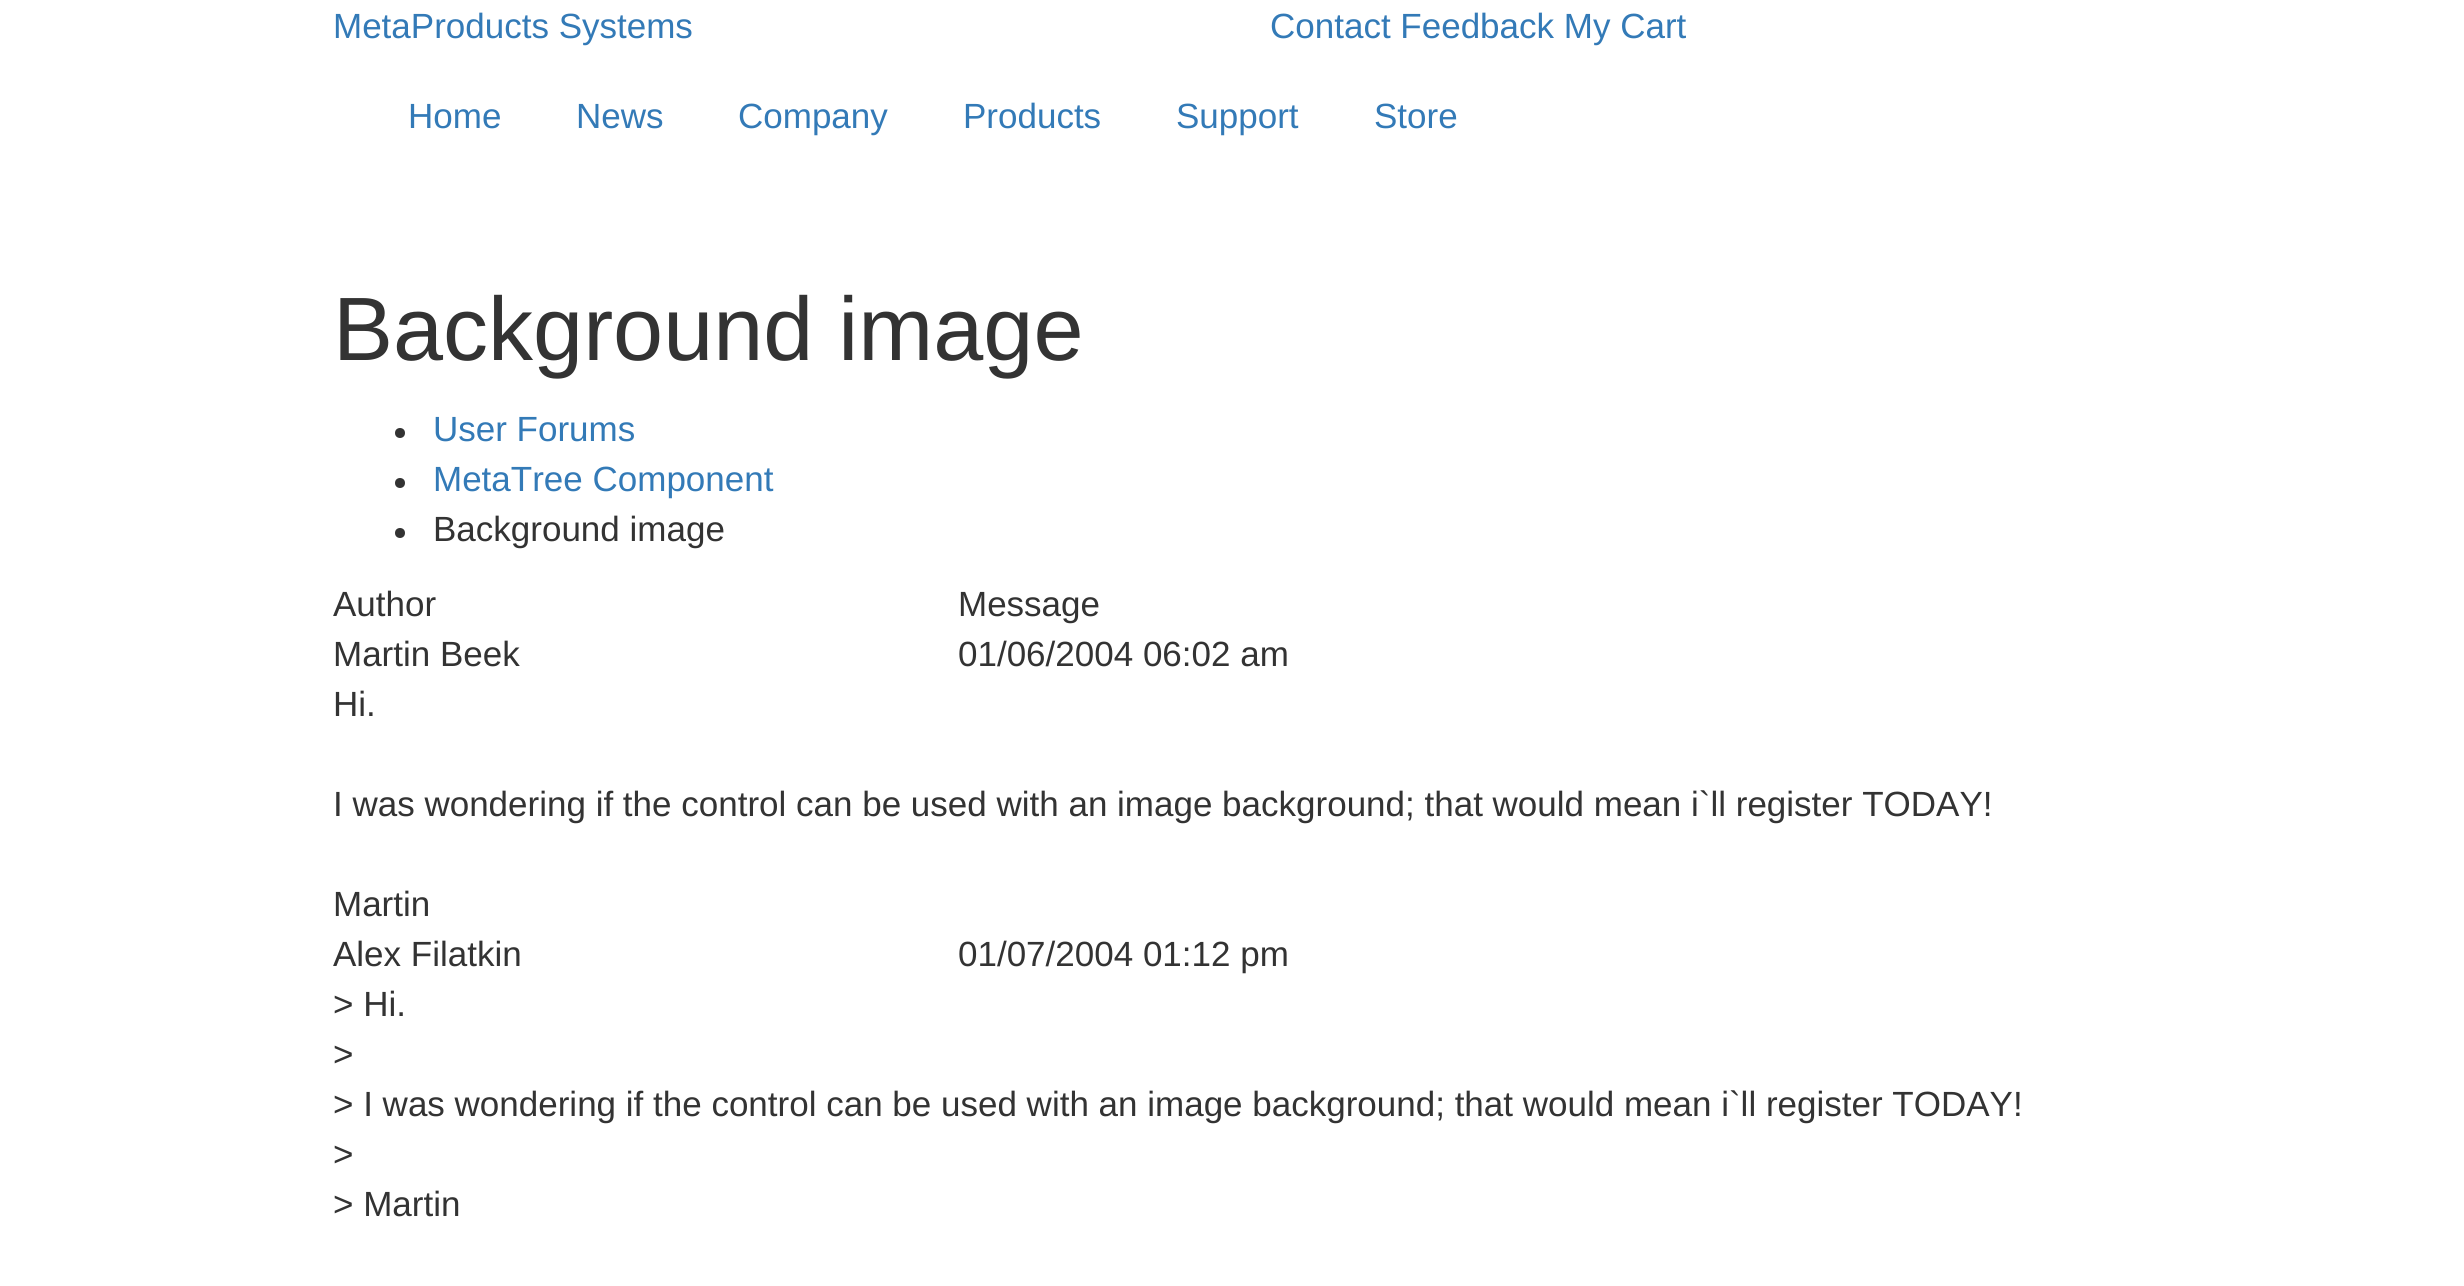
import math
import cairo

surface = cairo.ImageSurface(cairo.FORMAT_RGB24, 2464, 1286)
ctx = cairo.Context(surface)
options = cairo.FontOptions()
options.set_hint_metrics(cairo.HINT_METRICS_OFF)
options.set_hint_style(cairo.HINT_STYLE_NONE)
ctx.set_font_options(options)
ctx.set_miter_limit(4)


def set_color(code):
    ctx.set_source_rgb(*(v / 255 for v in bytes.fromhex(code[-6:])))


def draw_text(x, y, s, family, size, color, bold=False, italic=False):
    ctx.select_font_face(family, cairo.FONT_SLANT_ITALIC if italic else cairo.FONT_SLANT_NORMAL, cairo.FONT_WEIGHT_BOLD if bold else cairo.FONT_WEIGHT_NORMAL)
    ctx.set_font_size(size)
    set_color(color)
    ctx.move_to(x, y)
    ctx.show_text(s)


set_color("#ffffff")
ctx.paint()
draw_text(333, 38, "MetaProducts Systems", "Liberation Sans", 35, "#337ab7")
draw_text(1270, 38, "Contact Feedback My Cart", "Liberation Sans", 35, "#337ab7")
draw_text(408, 128, "Home", "Liberation Sans", 35, "#337ab7")
draw_text(576, 128, "News", "Liberation Sans", 35, "#337ab7")
draw_text(738, 128, "Company", "Liberation Sans", 35, "#337ab7")
draw_text(963, 128, "Products", "Liberation Sans", 35, "#337ab7")
draw_text(1176, 128, "Support", "Liberation Sans", 35, "#337ab7")
draw_text(1374, 128, "Store", "Liberation Sans", 35, "#337ab7")
draw_text(333, 360, "Background image", "Liberation Sans", 90, "#333333")
ctx.new_path()
ctx.arc(400, 433, 5, 0, 2 * math.pi)
ctx.fill()
draw_text(433, 441, "User Forums", "Liberation Sans", 35, "#337ab7")
set_color("#333333")
ctx.new_path()
ctx.arc(400, 483, 5, 0, 2 * math.pi)
ctx.fill()
draw_text(433, 491, "MetaTree Component", "Liberation Sans", 35, "#337ab7")
set_color("#333333")
ctx.new_path()
ctx.arc(400, 533, 5, 0, 2 * math.pi)
ctx.fill()
draw_text(433, 541, "Background image", "Liberation Sans", 35, "#333333")
draw_text(333, 616, "Author", "Liberation Sans", 35, "#333333")
draw_text(958, 616, "Message", "Liberation Sans", 35, "#333333")
draw_text(333, 666, "Martin Beek", "Liberation Sans", 35, "#333333")
draw_text(958, 666, "01/06/2004 06:02 am", "Liberation Sans", 35, "#333333")
draw_text(333, 716, "Hi.", "Liberation Sans", 35, "#333333")
draw_text(333, 816, "I was wondering if the control can be used with an image background; that would mean i`ll register TODAY!", "Liberation Sans", 35, "#333333")
draw_text(333, 916, "Martin", "Liberation Sans", 35, "#333333")
draw_text(333, 966, "Alex Filatkin", "Liberation Sans", 35, "#333333")
draw_text(958, 966, "01/07/2004 01:12 pm", "Liberation Sans", 35, "#333333")
draw_text(333, 1016, "> Hi.", "Liberation Sans", 35, "#333333")
draw_text(333, 1066, ">", "Liberation Sans", 35, "#333333")
draw_text(333, 1116, "> I was wondering if the control can be used with an image background; that would mean i`ll register TODAY!", "Liberation Sans", 35, "#333333")
draw_text(333, 1166, ">", "Liberation Sans", 35, "#333333")
draw_text(333, 1216, "> Martin", "Liberation Sans", 35, "#333333")
surface.write_to_png("output.png")
